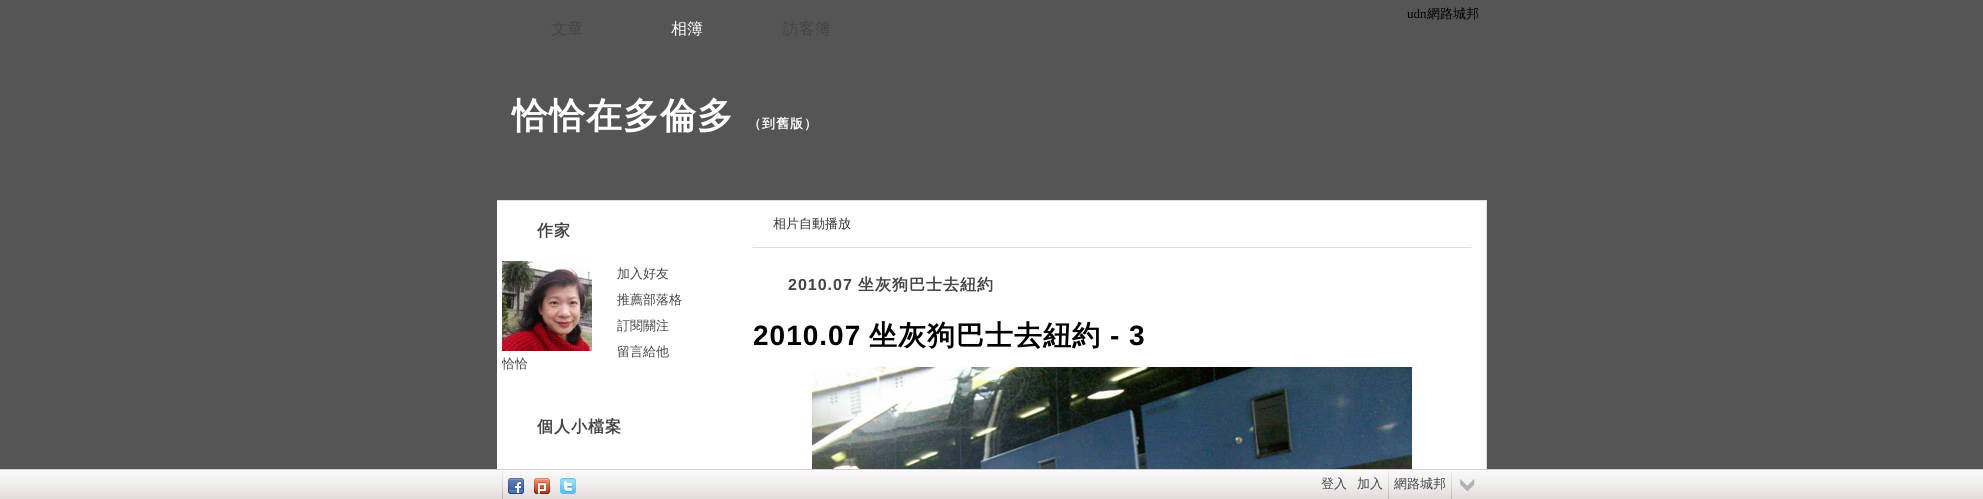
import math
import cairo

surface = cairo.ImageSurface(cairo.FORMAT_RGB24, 1983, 499)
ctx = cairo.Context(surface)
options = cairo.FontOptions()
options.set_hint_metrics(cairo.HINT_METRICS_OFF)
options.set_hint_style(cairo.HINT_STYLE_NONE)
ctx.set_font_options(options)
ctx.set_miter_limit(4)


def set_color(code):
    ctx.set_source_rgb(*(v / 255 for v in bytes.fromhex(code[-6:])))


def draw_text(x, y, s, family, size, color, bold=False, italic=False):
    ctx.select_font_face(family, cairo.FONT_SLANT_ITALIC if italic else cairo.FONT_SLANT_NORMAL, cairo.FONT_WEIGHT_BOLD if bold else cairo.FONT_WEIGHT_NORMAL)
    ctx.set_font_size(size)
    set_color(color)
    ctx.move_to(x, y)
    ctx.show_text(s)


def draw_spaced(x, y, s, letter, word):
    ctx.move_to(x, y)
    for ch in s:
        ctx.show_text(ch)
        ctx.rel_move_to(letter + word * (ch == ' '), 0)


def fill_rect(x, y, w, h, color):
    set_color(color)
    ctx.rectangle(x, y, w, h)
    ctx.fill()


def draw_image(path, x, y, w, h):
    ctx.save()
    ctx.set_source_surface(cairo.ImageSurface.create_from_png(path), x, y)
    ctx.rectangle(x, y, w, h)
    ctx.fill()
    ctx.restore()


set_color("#555555")
ctx.paint()
draw_text(1407, 18, "udn", "Liberation Serif", 13, "#000000")
draw_text(1427, 18, "網路城邦", "WenQuanYi Zen Hei Medium", 13, "#000000")
draw_text(551, 34, "文章", "WenQuanYi Zen Hei Medium", 16, "#444444")
draw_text(671, 34, "相簿", "WenQuanYi Zen Hei Medium", 16, "#ffffff")
draw_text(783, 34, "訪客簿", "WenQuanYi Zen Hei Medium", 16, "#444444")
fill_rect(497, 200, 990, 1, "#dddddd")
ctx.select_font_face("WenQuanYi Zen Hei", cairo.FONT_SLANT_NORMAL, cairo.FONT_WEIGHT_BOLD)
ctx.set_font_size(36)
set_color("#ffffff")
draw_spaced(512, 128, "恰恰在多倫多", 1, 0)
ctx.set_font_size(13)
draw_spaced(748, 128, "（到舊版）", 1, 0)
fill_rect(497, 201, 989, 268, "#ffffff")
ctx.set_font_size(16)
set_color("#444444")
draw_spaced(537, 236, "作家", 1, 0)
draw_text(617, 278, "加入好友", "WenQuanYi Zen Hei Medium", 13, "#444444")
draw_text(617, 304, "推薦部落格", "WenQuanYi Zen Hei Medium", 13, "#444444")
draw_text(617, 330, "訂閱關注", "WenQuanYi Zen Hei Medium", 13, "#444444")
draw_text(617, 356, "留言給他", "WenQuanYi Zen Hei Medium", 13, "#444444")
draw_image("assets/img1.png", 502, 261, 90, 90)
draw_text(502, 368, "恰恰", "WenQuanYi Zen Hei Medium", 13, "#444444")
ctx.select_font_face("WenQuanYi Zen Hei", cairo.FONT_SLANT_NORMAL, cairo.FONT_WEIGHT_BOLD)
ctx.set_font_size(16)
draw_spaced(537, 432, "個人小檔案", 1, 0)
fill_rect(1486, 201, 1, 268, "#dddddd")
fill_rect(753, 247, 718, 1, "#dddddd")
draw_text(773, 228, "相片自動播放", "WenQuanYi Zen Hei Medium", 13, "#333333")
ctx.select_font_face("Liberation Sans", cairo.FONT_SLANT_NORMAL, cairo.FONT_WEIGHT_BOLD)
ctx.set_font_size(16)
set_color("#444444")
draw_spaced(788, 290, "2010.07", 1, 0)
ctx.select_font_face("WenQuanYi Zen Hei", cairo.FONT_SLANT_NORMAL, cairo.FONT_WEIGHT_BOLD)
draw_spaced(858, 290, "坐灰狗巴士去紐約", 1, 0)
ctx.select_font_face("Liberation Sans", cairo.FONT_SLANT_NORMAL, cairo.FONT_WEIGHT_BOLD)
ctx.set_font_size(28)
set_color("#000000")
draw_spaced(753, 345, "2010.07", 1, 0)
ctx.select_font_face("WenQuanYi Zen Hei", cairo.FONT_SLANT_NORMAL, cairo.FONT_WEIGHT_BOLD)
draw_spaced(869, 345, "坐灰狗巴士去紐約", 1, 0)
ctx.select_font_face("Liberation Sans", cairo.FONT_SLANT_NORMAL, cairo.FONT_WEIGHT_BOLD)
draw_spaced(1110, 345, "- 3", 1, 0)
draw_image("assets/img2.png", 812, 367, 600, 102)
draw_image("assets/img3.png", 0, 469, 1983, 30)
draw_image("assets/img4.png", 502, 471, 1, 28)
draw_image("assets/img5.png", 508, 478, 16, 16)
draw_image("assets/img6.png", 534, 478, 16, 16)
draw_image("assets/img7.png", 560, 478, 16, 16)
draw_text(1321, 488, "登入", "WenQuanYi Zen Hei Medium", 13, "#444444")
draw_text(1357, 488, "加入", "WenQuanYi Zen Hei Medium", 13, "#444444")
draw_image("assets/img4.png", 1388, 471, 1, 28)
draw_text(1394, 488, "網路城邦", "WenQuanYi Zen Hei Medium", 13, "#444444")
draw_image("assets/img4.png", 1451, 471, 1, 28)
draw_image("assets/img8.png", 1460, 478, 15, 14)
surface.write_to_png("output.png")
